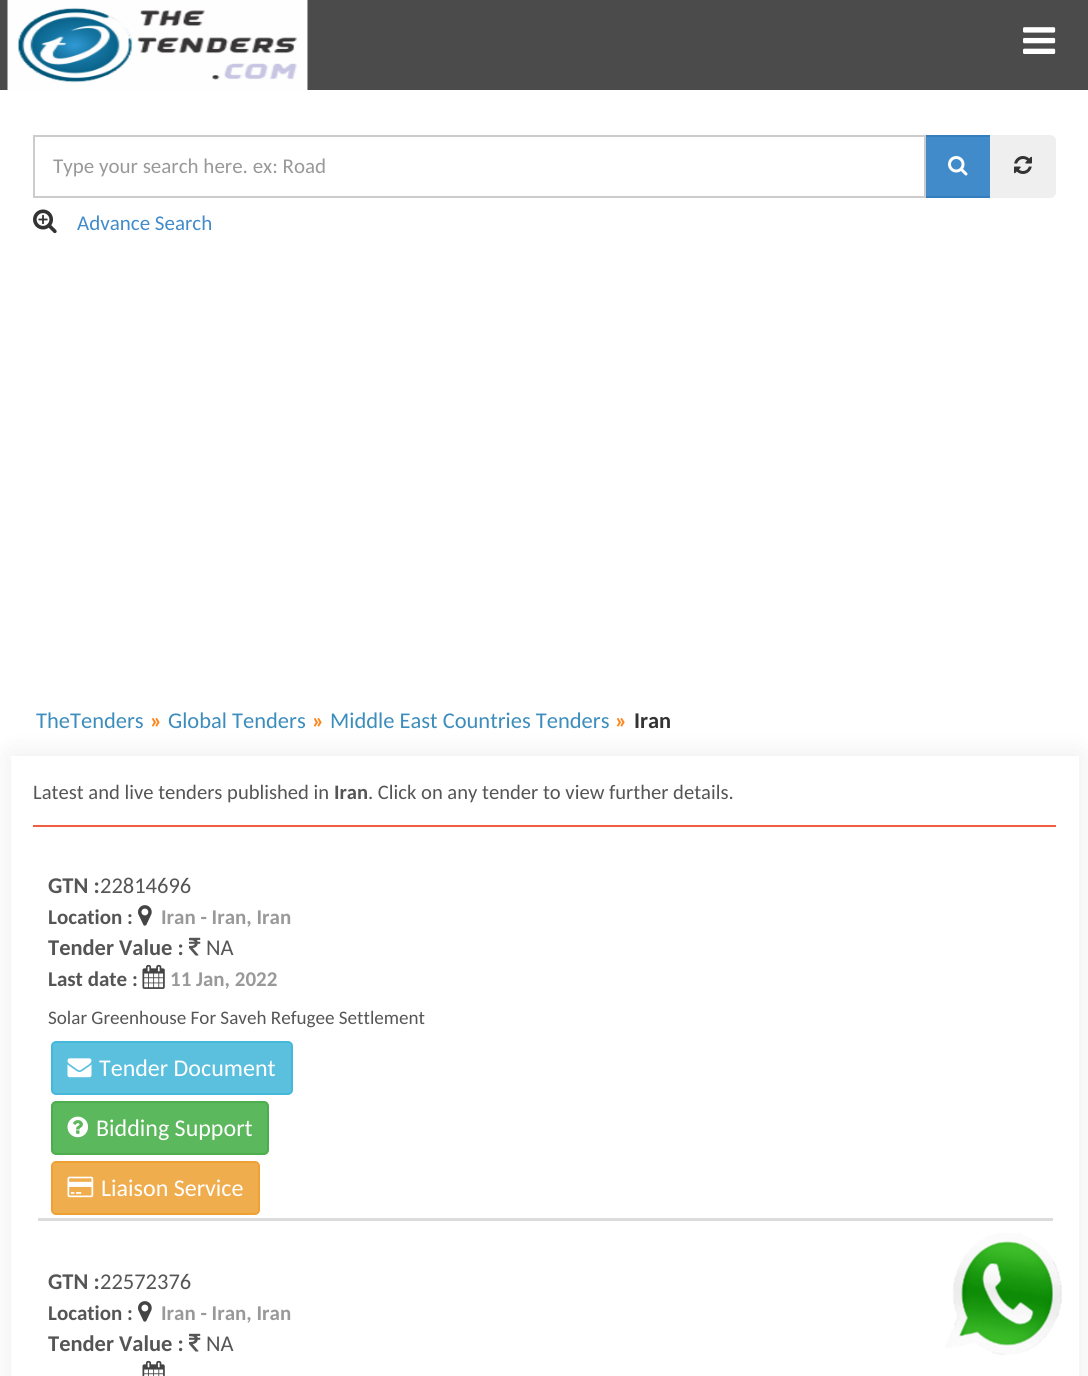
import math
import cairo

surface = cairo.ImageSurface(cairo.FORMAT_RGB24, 1088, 1376)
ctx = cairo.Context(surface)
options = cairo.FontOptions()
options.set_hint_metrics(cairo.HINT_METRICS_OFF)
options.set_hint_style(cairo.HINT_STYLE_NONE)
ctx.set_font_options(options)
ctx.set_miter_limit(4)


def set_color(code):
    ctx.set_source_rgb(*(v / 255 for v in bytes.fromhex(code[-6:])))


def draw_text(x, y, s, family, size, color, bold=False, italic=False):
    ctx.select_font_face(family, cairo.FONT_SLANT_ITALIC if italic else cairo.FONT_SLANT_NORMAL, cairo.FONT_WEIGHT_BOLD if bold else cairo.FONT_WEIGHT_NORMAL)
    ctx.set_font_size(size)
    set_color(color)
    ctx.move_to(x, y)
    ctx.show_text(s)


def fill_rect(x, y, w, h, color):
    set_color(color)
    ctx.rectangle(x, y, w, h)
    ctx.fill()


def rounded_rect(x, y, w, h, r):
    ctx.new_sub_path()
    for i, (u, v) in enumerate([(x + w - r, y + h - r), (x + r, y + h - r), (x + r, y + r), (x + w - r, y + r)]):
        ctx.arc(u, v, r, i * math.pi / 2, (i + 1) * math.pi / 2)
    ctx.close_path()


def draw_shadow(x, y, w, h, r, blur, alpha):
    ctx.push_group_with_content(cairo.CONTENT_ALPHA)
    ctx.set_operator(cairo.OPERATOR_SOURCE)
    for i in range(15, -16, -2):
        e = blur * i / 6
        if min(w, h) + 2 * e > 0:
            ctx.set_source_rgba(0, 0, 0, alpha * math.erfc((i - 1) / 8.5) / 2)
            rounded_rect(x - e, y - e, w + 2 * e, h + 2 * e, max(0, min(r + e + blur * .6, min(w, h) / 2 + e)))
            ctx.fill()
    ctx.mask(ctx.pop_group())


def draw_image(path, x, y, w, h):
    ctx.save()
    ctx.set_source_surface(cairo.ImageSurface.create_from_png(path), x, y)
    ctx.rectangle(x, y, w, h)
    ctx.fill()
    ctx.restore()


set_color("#ffffff")
ctx.paint()
fill_rect(0, 0, 1088, 90, "#4b4b4b")
draw_image("assets/img1.png", 7, 0, 301, 90)
draw_image("assets/img2.png", 1023, 27, 33, 27)
set_color("#428bca")
ctx.rectangle(925, 136, 66, 61)
ctx.fill_preserve()
set_color("#357ebd")
ctx.stroke()
ctx.rectangle(34, 136, 891, 61)
set_color("#cccccc")
ctx.stroke()
draw_text(53, 173, "Type your search here. ex: Road", "Carlito", 21, "#999999")
draw_image("assets/img3.png", 948, 156, 20, 20)
set_color("#efefef")
ctx.new_path()
ctx.move_to(990, 135)
ctx.line_to(1050, 135)
ctx.curve_to(1053.5, 135, 1056, 137.5, 1056, 141)
ctx.line_to(1056, 192)
ctx.curve_to(1056, 195.5, 1053.5, 198, 1050, 198)
ctx.line_to(990, 198)
ctx.close_path()
ctx.fill()
draw_image("assets/img4.png", 1014, 156, 18, 18)
draw_image("assets/img5.png", 33, 209, 24, 25)
draw_text(77, 230, "Advance Search", "Carlito", 21, "#428bca")
draw_text(36, 728, "TheTenders", "Carlito", 22.5, "#3c8dbc")
draw_text(150, 728, "»", "Carlito", 22.5, "#ff851b", bold=True)
draw_text(168, 728, "Global Tenders", "Carlito", 22.5, "#3c8dbc")
draw_text(312, 728, "»", "Carlito", 22.5, "#ff851b", bold=True)
draw_text(330, 728, "Middle East Countries Tenders", "Carlito", 22.5, "#3c8dbc")
draw_text(615, 728, "»", "Carlito", 22.5, "#ff851b", bold=True)
draw_text(634, 728, "Iran", "Carlito", 22.5, "#333333", bold=True)
ctx.save()
ctx.set_fill_rule(cairo.FILL_RULE_EVEN_ODD)
ctx.new_path()
ctx.move_to(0, 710)
ctx.line_to(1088, 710)
ctx.line_to(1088, 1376)
ctx.line_to(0, 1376)
ctx.close_path()
ctx.move_to(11, 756)
ctx.line_to(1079, 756)
ctx.line_to(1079, 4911)
ctx.line_to(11, 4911)
ctx.close_path()
ctx.clip()
set_color("#000000")
draw_shadow(12, 756, 1068, 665, 0, 15, 0.08)
ctx.restore()
draw_text(33, 799, "Latest and live tenders published in", "Carlito", 20.6, "#555555")
draw_text(334, 799, "Iran", "Carlito", 20.6, "#555555", bold=True)
draw_text(368, 799, ". Click on any tender to view further details.", "Carlito", 20.6, "#555555")
fill_rect(33, 825, 1023, 2, "#f15f43")
fill_rect(38, 1218, 1015, 3, "#dcdcdc")
draw_text(48, 893, "GTN :", "Carlito", 22.5, "#555555", bold=True)
draw_text(100, 893, "22814696", "Carlito", 22.5, "#555555")
draw_text(48, 924, "Location :", "Carlito", 21, "#555555", bold=True)
draw_image("assets/img6.png", 138, 905, 14, 21)
draw_text(161, 924, "Iran - Iran, Iran", "Carlito", 21, "#999999", bold=True)
draw_text(48, 955, "Tender Value :", "Carlito", 22.5, "#555555", bold=True)
draw_image("assets/img7.png", 189, 937, 12, 19)
draw_text(206, 955, "NA", "Carlito", 22.5, "#555555")
draw_text(48, 986, "Last date :", "Carlito", 21, "#555555", bold=True)
draw_image("assets/img8.png", 142, 964, 23, 25)
draw_text(170, 986, "11 Jan, 2022", "Carlito", 21, "#999999", bold=True)
draw_text(48, 1024, "Solar Greenhouse For Saveh Refugee Settlement", "Carlito", 19.1, "#555555")
set_color("#5bc0de")
rounded_rect(52, 1042, 240, 52, 4)
ctx.fill_preserve()
set_color("#46b8da")
ctx.stroke()
draw_image("assets/img9.png", 67, 1058, 25, 20)
draw_text(99, 1076, "Tender Document", "Carlito", 24, "#ffffff")
set_color("#5cb85c")
rounded_rect(52, 1102, 216, 52, 4)
ctx.fill_preserve()
set_color("#4cae4c")
ctx.stroke()
draw_image("assets/img10.png", 67, 1116, 22, 22)
draw_text(96, 1136, "Bidding Support", "Carlito", 24, "#ffffff")
set_color("#f0ad4e")
rounded_rect(52, 1162, 207, 52, 4)
ctx.fill_preserve()
set_color("#eea236")
ctx.stroke()
draw_image("assets/img11.png", 67, 1176, 27, 22)
draw_text(101, 1196, "Liaison Service", "Carlito", 24, "#ffffff")
draw_text(48, 1289, "GTN :", "Carlito", 22.5, "#555555", bold=True)
draw_text(100, 1289, "22572376", "Carlito", 22.5, "#555555")
draw_text(48, 1320, "Location :", "Carlito", 21, "#555555", bold=True)
draw_image("assets/img6.png", 138, 1301, 14, 21)
draw_text(161, 1320, "Iran - Iran, Iran", "Carlito", 21, "#999999", bold=True)
draw_text(48, 1351, "Tender Value :", "Carlito", 22.5, "#555555", bold=True)
draw_image("assets/img7.png", 189, 1333, 12, 19)
draw_text(206, 1351, "NA", "Carlito", 22.5, "#555555")
draw_image("assets/img12.png", 142, 1360, 23, 16)
draw_image("assets/img13.png", 945, 1233, 117, 123)
surface.write_to_png("output.png")
